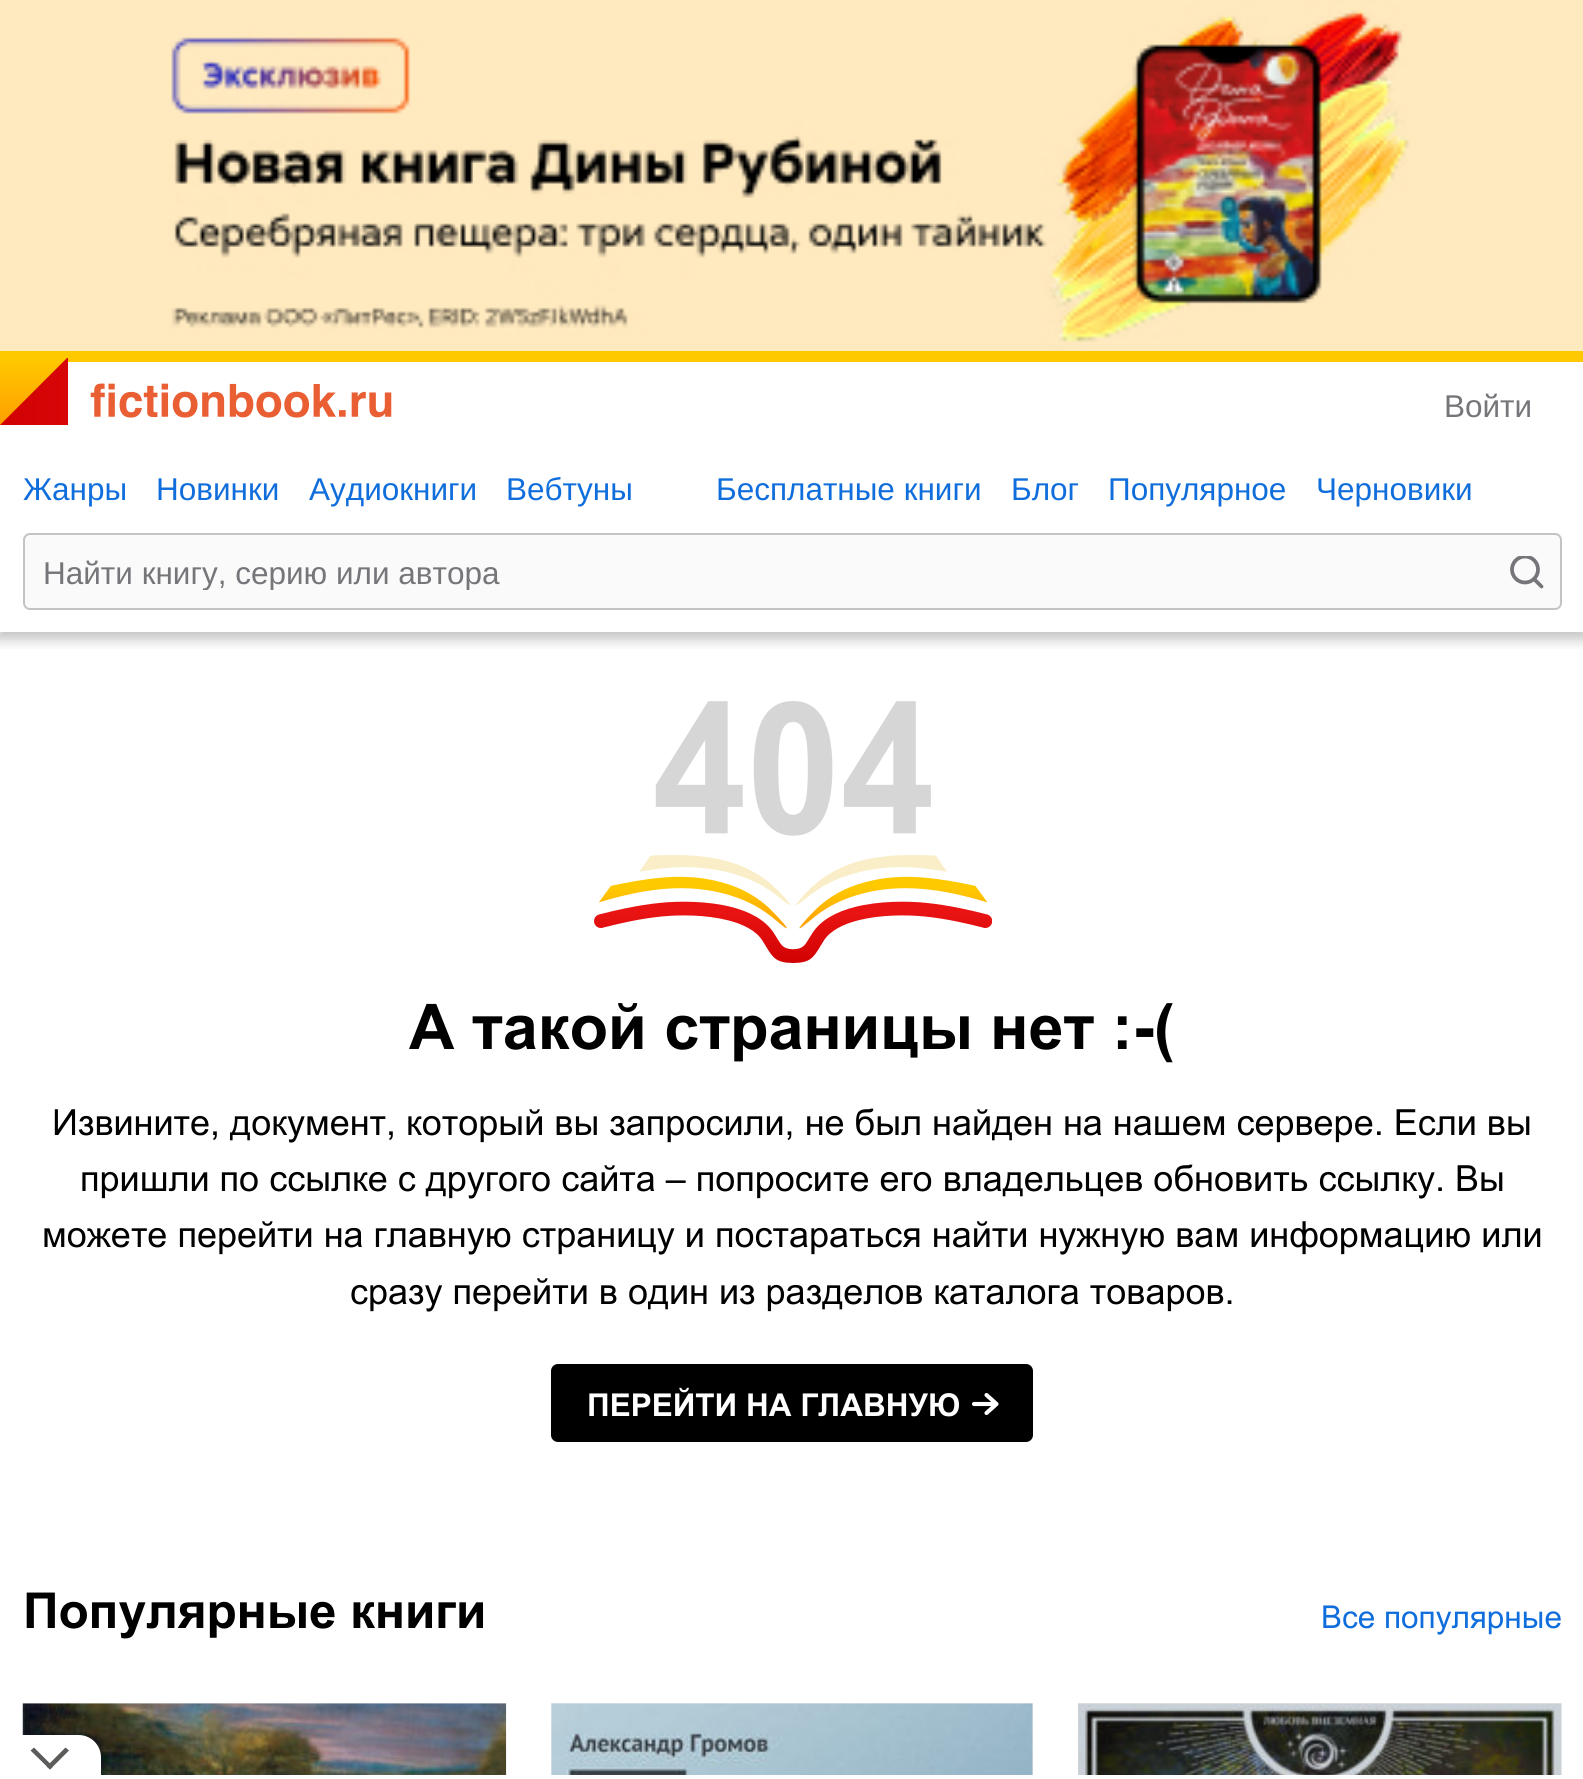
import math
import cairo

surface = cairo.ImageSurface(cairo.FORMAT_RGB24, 1583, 1779)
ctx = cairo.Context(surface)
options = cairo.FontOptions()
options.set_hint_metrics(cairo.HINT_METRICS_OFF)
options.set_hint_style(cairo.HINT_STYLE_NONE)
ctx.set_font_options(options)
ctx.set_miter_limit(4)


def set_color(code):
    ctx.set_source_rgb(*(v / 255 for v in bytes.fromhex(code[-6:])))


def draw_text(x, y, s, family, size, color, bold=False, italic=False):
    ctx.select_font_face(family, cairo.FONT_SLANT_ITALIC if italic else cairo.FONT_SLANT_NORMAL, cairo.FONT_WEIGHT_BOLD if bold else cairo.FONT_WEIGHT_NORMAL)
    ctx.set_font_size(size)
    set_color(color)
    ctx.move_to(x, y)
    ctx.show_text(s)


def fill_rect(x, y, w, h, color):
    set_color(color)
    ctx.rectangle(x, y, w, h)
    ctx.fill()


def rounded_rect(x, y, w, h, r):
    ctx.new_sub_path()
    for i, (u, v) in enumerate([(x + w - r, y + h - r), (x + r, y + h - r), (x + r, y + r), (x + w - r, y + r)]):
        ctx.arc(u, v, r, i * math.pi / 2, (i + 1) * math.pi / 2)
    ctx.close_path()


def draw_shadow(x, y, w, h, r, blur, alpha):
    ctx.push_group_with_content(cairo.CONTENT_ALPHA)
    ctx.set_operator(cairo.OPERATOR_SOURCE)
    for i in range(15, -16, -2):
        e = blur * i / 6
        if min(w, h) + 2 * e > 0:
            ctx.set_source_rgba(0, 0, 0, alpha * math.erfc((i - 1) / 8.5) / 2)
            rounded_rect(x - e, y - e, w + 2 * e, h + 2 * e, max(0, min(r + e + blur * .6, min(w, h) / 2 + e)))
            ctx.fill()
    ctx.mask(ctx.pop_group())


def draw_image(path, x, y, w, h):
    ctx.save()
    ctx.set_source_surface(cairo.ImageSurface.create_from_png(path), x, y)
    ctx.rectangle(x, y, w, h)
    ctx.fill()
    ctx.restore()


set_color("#ffffff")
ctx.paint()
ctx.save()
ctx.rectangle(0, 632, 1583, 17)
ctx.clip()
set_color("#000000")
draw_shadow(-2, 353, 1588, 286, 0, 7, 0.25)
ctx.restore()
draw_image("assets/img1.png", 0, 0, 1583, 351)
fill_rect(0, 351, 1583, 11, "#ffc900")
gradient = cairo.LinearGradient(34, 425, 34, 358)
gradient.add_color_stop_rgba(0, 1, 0.62, 0, 1)
gradient.add_color_stop_rgba(1, 1, 0.788, 0, 1)
ctx.set_source(gradient)
ctx.rectangle(0, 362, 67, 63)
ctx.fill()
ctx.save()
ctx.rectangle(0, 358, 68, 67)
ctx.clip()
gradient = cairo.LinearGradient(-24, 449, 294, 449)
gradient.add_color_stop_rgba(0, 0.812, 0, 0.008, 1)
gradient.add_color_stop_rgba(1, 0.925, 0.082, 0.086, 1)
ctx.set_source(gradient)
ctx.new_path()
ctx.move_to(135, 290)
ctx.line_to(294, 449)
ctx.line_to(135, 608)
ctx.line_to(-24, 449)
ctx.close_path()
ctx.fill()
ctx.restore()
draw_image("assets/img2.png", 90, 383, 302, 35)
draw_text(1444, 417, "Войти", "Liberation Sans", 31.5, "#767579")
draw_text(23, 500, "Жанры", "Liberation Sans", 31.5, "#106edc")
draw_text(156, 500, "Новинки", "Liberation Sans", 31.5, "#106edc")
draw_text(309, 500, "Аудиокниги", "Liberation Sans", 31.5, "#106edc")
draw_text(506, 500, "Вебтуны", "Liberation Sans", 31.5, "#106edc")
draw_text(716, 500, "Бесплатные книги", "Liberation Sans", 31.5, "#106edc")
draw_text(1011, 500, "Блог", "Liberation Sans", 31.5, "#106edc")
draw_text(1108, 500, "Популярное", "Liberation Sans", 31.5, "#106edc")
draw_text(1316, 500, "Черновики", "Liberation Sans", 31.5, "#106edc")
set_color("#fafafa")
rounded_rect(24, 534, 1537, 75, 6)
ctx.fill_preserve()
set_color("#c4c4c6")
ctx.stroke()
ctx.save()
ctx.rectangle(43, 554, 1453, 36)
ctx.clip()
draw_text(43, 584, "Найти книгу, серию или автора", "Liberation Sans", 31.5, "#767579")
ctx.restore()
ctx.new_path()
ctx.move_to(1534, 579)
ctx.line_to(1541.5, 586.5)
set_color("#767579")
ctx.set_line_width(3.8)
ctx.set_line_cap(cairo.LINE_CAP_ROUND)
ctx.set_line_join(cairo.LINE_JOIN_ROUND)
ctx.stroke()
ctx.save()
ctx.rectangle(1510, 556, 34, 34)
ctx.clip()
ctx.arc(1525, 569.5, 13, 0, 2 * math.pi)
ctx.set_line_cap(cairo.LINE_CAP_BUTT)
ctx.set_line_join(cairo.LINE_JOIN_MITER)
ctx.stroke()
ctx.restore()
draw_image("assets/img3.png", 594, 701, 398, 262)
draw_text(409, 1049, "А такой страницы нет :-(", "Arial", 63, "#000000", bold=True)
draw_text(52, 1135, "Извините, документ, который вы запросили, не был найден на нашем сервере. Если вы", "Arial", 36, "#000000")
draw_text(80, 1191, "пришли по ссылке с другого сайта – попросите его владельцев обновить ссылку. Вы", "Arial", 36, "#000000")
draw_text(42, 1247, "можете перейти на главную страницу и постараться найти нужную вам информацию или", "Arial", 36, "#000000")
draw_text(350, 1304, "сразу перейти в один из разделов каталога товаров.", "Arial", 36, "#000000")
rounded_rect(551, 1364, 482, 78, 7)
ctx.fill()
draw_text(587, 1416, "ПЕРЕЙТИ НА ГЛАВНУЮ", "Arial", 31.5, "#ffffff", bold=True)
ctx.new_path()
ctx.move_to(996.5, 1404)
ctx.line_to(974, 1404)
ctx.move_to(996.5, 1404)
ctx.line_to(986.5, 1413)
ctx.move_to(996.5, 1404)
ctx.line_to(986.5, 1395)
ctx.set_line_width(4.1)
ctx.stroke()
draw_text(23, 1628, "Популярные книги", "Arial", 49.5, "#000000", bold=True)
draw_text(1321, 1628, "Все популярные", "Arial", 31.5, "#106edc")
fill_rect(23, 1703, 483, 1, "#eeeeee")
draw_image("assets/img4.png", 22, 1703, 485, 72)
fill_rect(551, 1703, 482, 72, "#eeeeee")
draw_image("assets/img5.png", 551, 1703, 482, 72)
fill_rect(1078, 1703, 484, 72, "#eeeeee")
draw_image("assets/img6.png", 1078, 1703, 484, 72)
set_color("#ffffff")
ctx.new_path()
ctx.move_to(0, 1735)
ctx.line_to(78.5, 1735)
ctx.curve_to(91, 1735, 101, 1745, 101, 1757.5)
ctx.line_to(101, 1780)
ctx.line_to(0, 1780)
ctx.close_path()
ctx.fill()
set_color("#5c5c5b")
ctx.new_path()
ctx.move_to(65.5, 1747.5)
ctx.line_to(69, 1750.5)
ctx.line_to(50, 1769.5)
ctx.line_to(46.5, 1766.5)
ctx.close_path()
ctx.fill()
ctx.new_path()
ctx.move_to(34, 1747.5)
ctx.line_to(53, 1766.5)
ctx.line_to(50, 1769.5)
ctx.line_to(30.5, 1750.5)
ctx.close_path()
ctx.fill()
surface.write_to_png("output.png")
